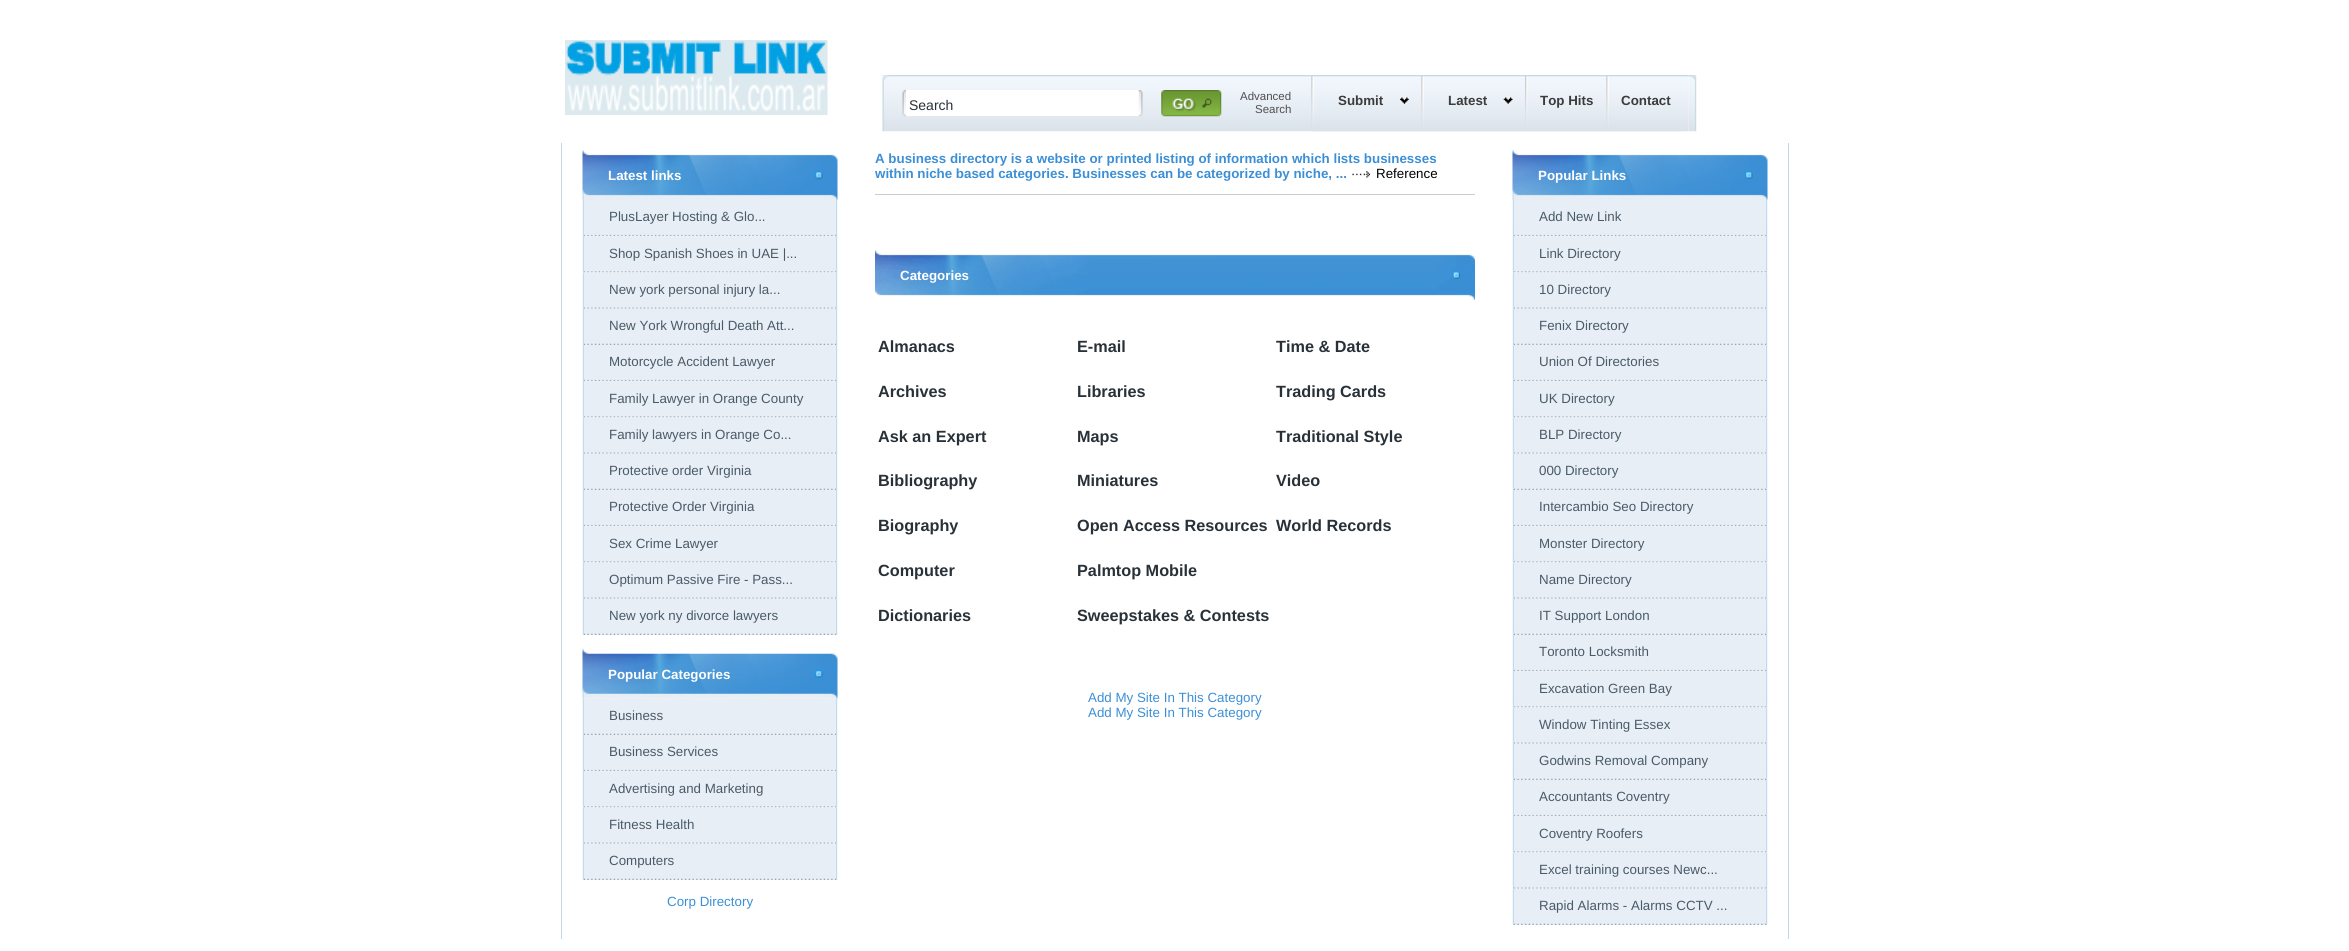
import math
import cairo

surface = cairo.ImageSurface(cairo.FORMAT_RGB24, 2349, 951)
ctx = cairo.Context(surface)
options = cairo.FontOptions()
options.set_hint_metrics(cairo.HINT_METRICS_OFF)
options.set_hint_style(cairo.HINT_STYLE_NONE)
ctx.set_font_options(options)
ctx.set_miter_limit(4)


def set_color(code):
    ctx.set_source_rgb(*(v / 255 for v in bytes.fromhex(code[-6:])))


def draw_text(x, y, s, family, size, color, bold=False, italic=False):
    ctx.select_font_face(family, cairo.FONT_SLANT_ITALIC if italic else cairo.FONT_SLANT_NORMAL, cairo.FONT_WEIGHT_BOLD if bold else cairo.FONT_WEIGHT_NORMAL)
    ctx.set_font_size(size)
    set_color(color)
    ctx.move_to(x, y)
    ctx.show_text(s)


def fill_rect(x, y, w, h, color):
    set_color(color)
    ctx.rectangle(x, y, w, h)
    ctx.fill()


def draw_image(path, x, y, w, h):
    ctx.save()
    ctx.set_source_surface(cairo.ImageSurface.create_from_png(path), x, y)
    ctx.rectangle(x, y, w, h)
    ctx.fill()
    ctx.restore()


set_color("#ffffff")
ctx.paint()
draw_image("assets/img1.png", 565, 40, 263, 75)
draw_image("assets/img2.png", 882, 75, 8, 57)
draw_image("assets/img3.png", 890, 75, 799, 57)
draw_image("assets/img4.png", 902, 90, 5, 27)
fill_rect(906, 90, 233, 26, "#ffffff")
draw_text(909, 110, "Search", "Liberation Sans", 14, "#293138")
draw_image("assets/img5.png", 1138, 90, 5, 27)
draw_image("assets/img6.png", 1161, 90, 61, 27)
draw_text(1240, 100, "Advanced", "Liberation Sans", 11.5, "#514e4e")
draw_text(1255, 113, "Search", "Liberation Sans", 11.5, "#514e4e")
draw_image("assets/img7.png", 1311, 76, 3, 56)
fill_rect(1314, 131, 107, 1, "#eff3f6")
draw_text(1338, 105, "Submit", "Liberation Sans", 13.35, "#3c3c3c", bold=True)
draw_image("assets/img8.png", 1400, 97, 9, 7)
draw_image("assets/img7.png", 1421, 76, 3, 56)
fill_rect(1424, 131, 101, 1, "#eff3f6")
draw_text(1448, 105, "Latest", "Liberation Sans", 13.35, "#3c3c3c", bold=True)
draw_image("assets/img9.png", 1503, 97, 10, 7)
draw_image("assets/img10.png", 1525, 76, 3, 56)
draw_image("assets/img11.png", 1527, 91, 79, 41)
draw_text(1540, 105, "Top Hits", "Liberation Sans", 13.35, "#3c3c3c", bold=True)
draw_image("assets/img7.png", 1606, 76, 3, 56)
fill_rect(1609, 131, 73, 1, "#eff3f6")
draw_text(1621, 105, "Contact", "Liberation Sans", 13.35, "#3c3c3c", bold=True)
draw_image("assets/img12.png", 1689, 75, 8, 57)
fill_rect(1788, 143, 1, 796, "#c1d7e4")
fill_rect(561, 143, 1, 796, "#c1d7e4")
draw_image("assets/img13.png", 582, 150, 256, 50)
draw_text(608, 180, "Latest links", "Liberation Sans", 13.35, "#ffffff", bold=True)
draw_image("assets/img14.png", 582, 200, 256, 37)
fill_rect(836, 200, 1, 36, "#c4dbed")
fill_rect(583, 200, 1, 36, "#c4dbed")
draw_text(609, 221, "PlusLayer Hosting & Glo...", "Liberation Sans", 13.35, "#4a5a67")
draw_image("assets/img15.png", 582, 236, 256, 37)
fill_rect(836, 236, 1, 37, "#c4dbed")
fill_rect(583, 236, 1, 37, "#c4dbed")
draw_text(609, 258, "Shop Spanish Shoes in UAE |...", "Liberation Sans", 13.35, "#4a5a67")
draw_image("assets/img16.png", 582, 272, 256, 37)
fill_rect(836, 273, 1, 36, "#c4dbed")
fill_rect(583, 273, 1, 36, "#c4dbed")
draw_text(609, 294, "New york personal injury la...", "Liberation Sans", 13.35, "#4a5a67")
draw_image("assets/img17.png", 582, 308, 256, 37)
fill_rect(836, 309, 1, 36, "#c4dbed")
fill_rect(583, 309, 1, 36, "#c4dbed")
draw_text(609, 330, "New York Wrongful Death Att...", "Liberation Sans", 13.35, "#4a5a67")
draw_image("assets/img14.png", 582, 345, 256, 37)
fill_rect(836, 345, 1, 36, "#c4dbed")
fill_rect(583, 345, 1, 36, "#c4dbed")
draw_text(609, 366, "Motorcycle Accident Lawyer", "Liberation Sans", 13.35, "#4a5a67")
draw_image("assets/img15.png", 582, 381, 256, 37)
fill_rect(836, 381, 1, 37, "#c4dbed")
fill_rect(583, 381, 1, 37, "#c4dbed")
draw_text(609, 403, "Family Lawyer in Orange County", "Liberation Sans", 13.35, "#4a5a67")
draw_image("assets/img16.png", 582, 417, 256, 37)
fill_rect(836, 418, 1, 36, "#c4dbed")
fill_rect(583, 418, 1, 36, "#c4dbed")
draw_text(609, 439, "Family lawyers in Orange Co...", "Liberation Sans", 13.35, "#4a5a67")
draw_image("assets/img17.png", 582, 453, 256, 37)
fill_rect(836, 454, 1, 36, "#c4dbed")
fill_rect(583, 454, 1, 36, "#c4dbed")
draw_text(609, 475, "Protective order Virginia", "Liberation Sans", 13.35, "#4a5a67")
draw_image("assets/img14.png", 582, 490, 256, 37)
fill_rect(836, 490, 1, 36, "#c4dbed")
fill_rect(583, 490, 1, 36, "#c4dbed")
draw_text(609, 511, "Protective Order Virginia", "Liberation Sans", 13.35, "#4a5a67")
draw_image("assets/img15.png", 582, 526, 256, 37)
fill_rect(836, 526, 1, 37, "#c4dbed")
fill_rect(583, 526, 1, 37, "#c4dbed")
draw_text(609, 548, "Sex Crime Lawyer", "Liberation Sans", 13.35, "#4a5a67")
draw_image("assets/img18.png", 582, 562, 256, 37)
fill_rect(836, 563, 1, 36, "#c4dbed")
fill_rect(583, 563, 1, 36, "#c4dbed")
draw_text(609, 584, "Optimum Passive Fire - Pass...", "Liberation Sans", 13.35, "#4a5a67")
draw_image("assets/img17.png", 582, 598, 256, 37)
fill_rect(836, 599, 1, 36, "#c4dbed")
fill_rect(583, 599, 1, 36, "#c4dbed")
draw_text(609, 620, "New york ny divorce lawyers", "Liberation Sans", 13.35, "#4a5a67")
draw_image("assets/img19.png", 582, 648, 256, 51)
draw_text(608, 679, "Popular Categories", "Liberation Sans", 13.35, "#ffffff", bold=True)
draw_image("assets/img20.png", 582, 698, 256, 37)
fill_rect(836, 699, 1, 36, "#c4dbed")
fill_rect(583, 699, 1, 36, "#c4dbed")
draw_text(609, 720, "Business", "Liberation Sans", 13.35, "#4a5a67")
draw_image("assets/img14.png", 582, 735, 256, 37)
fill_rect(836, 735, 1, 36, "#c4dbed")
fill_rect(583, 735, 1, 36, "#c4dbed")
draw_text(609, 756, "Business Services", "Liberation Sans", 13.35, "#4a5a67")
draw_image("assets/img15.png", 582, 771, 256, 37)
fill_rect(836, 771, 1, 37, "#c4dbed")
fill_rect(583, 771, 1, 37, "#c4dbed")
draw_text(609, 793, "Advertising and Marketing", "Liberation Sans", 13.35, "#4a5a67")
draw_image("assets/img16.png", 582, 807, 256, 37)
fill_rect(836, 808, 1, 36, "#c4dbed")
fill_rect(583, 808, 1, 36, "#c4dbed")
draw_text(609, 829, "Fitness Health", "Liberation Sans", 13.35, "#4a5a67")
draw_image("assets/img17.png", 582, 843, 256, 37)
fill_rect(836, 844, 1, 36, "#c4dbed")
fill_rect(583, 844, 1, 36, "#c4dbed")
draw_text(609, 865, "Computers", "Liberation Sans", 13.35, "#4a5a67")
draw_text(667, 906, "Corp Directory", "Liberation Sans", 13.35, "#3c8fd6")
fill_rect(875, 194, 600, 1, "#cccccc")
draw_text(875, 163, "A business directory is a website or printed listing of information which lists businesses", "Liberation Sans", 13.35, "#3c8fd6", bold=True)
draw_text(875, 178, "within niche based categories. Businesses can be categorized by niche, ...", "Liberation Sans", 13.35, "#3c8fd6", bold=True)
draw_image("assets/img21.png", 1352, 171, 18, 7)
draw_text(1376, 178, "Reference", "Liberation Sans", 13.35, "#000000")
draw_image("assets/img22.png", 875, 250, 600, 50)
draw_text(900, 280, "Categories", "Liberation Sans", 13.35, "#ffffff", bold=True)
draw_text(878, 352, "Almanacs", "Liberation Sans", 16.25, "#293138", bold=True)
draw_text(878, 397, "Archives", "Liberation Sans", 16.25, "#293138", bold=True)
draw_text(878, 442, "Ask an Expert", "Liberation Sans", 16.25, "#293138", bold=True)
draw_text(878, 486, "Bibliography", "Liberation Sans", 16.25, "#293138", bold=True)
draw_text(878, 531, "Biography", "Liberation Sans", 16.25, "#293138", bold=True)
draw_text(878, 576, "Computer", "Liberation Sans", 16.25, "#293138", bold=True)
draw_text(878, 621, "Dictionaries", "Liberation Sans", 16.25, "#293138", bold=True)
draw_text(1077, 352, "E-mail", "Liberation Sans", 16.25, "#293138", bold=True)
draw_text(1077, 397, "Libraries", "Liberation Sans", 16.25, "#293138", bold=True)
draw_text(1077, 442, "Maps", "Liberation Sans", 16.25, "#293138", bold=True)
draw_text(1077, 486, "Miniatures", "Liberation Sans", 16.25, "#293138", bold=True)
draw_text(1077, 531, "Open Access Resources", "Liberation Sans", 16.25, "#293138", bold=True)
draw_text(1077, 576, "Palmtop Mobile", "Liberation Sans", 16.25, "#293138", bold=True)
draw_text(1077, 621, "Sweepstakes & Contests", "Liberation Sans", 16.25, "#293138", bold=True)
draw_text(1276, 352, "Time & Date", "Liberation Sans", 16.25, "#293138", bold=True)
draw_text(1276, 397, "Trading Cards", "Liberation Sans", 16.25, "#293138", bold=True)
draw_text(1276, 442, "Traditional Style", "Liberation Sans", 16.25, "#293138", bold=True)
draw_text(1276, 486, "Video", "Liberation Sans", 16.25, "#293138", bold=True)
draw_text(1276, 531, "World Records", "Liberation Sans", 16.25, "#293138", bold=True)
draw_text(1088, 702, "Add My Site In This Category", "Liberation Sans", 13.35, "#3c8fd6")
draw_text(1088, 717, "Add My Site In This Category", "Liberation Sans", 13.35, "#3c8fd6")
draw_image("assets/img23.png", 1512, 150, 256, 50)
draw_text(1538, 180, "Popular Links", "Liberation Sans", 13.35, "#ffffff", bold=True)
draw_image("assets/img14.png", 1512, 200, 256, 37)
fill_rect(1766, 200, 1, 36, "#c4dbed")
fill_rect(1513, 200, 1, 36, "#c4dbed")
draw_text(1539, 221, "Add New Link", "Liberation Sans", 13.35, "#4a5a67")
draw_image("assets/img15.png", 1512, 236, 256, 37)
fill_rect(1766, 236, 1, 37, "#c4dbed")
fill_rect(1513, 236, 1, 37, "#c4dbed")
draw_text(1539, 258, "Link Directory", "Liberation Sans", 13.35, "#4a5a67")
draw_image("assets/img24.png", 1512, 272, 256, 37)
fill_rect(1766, 273, 1, 36, "#c4dbed")
fill_rect(1513, 273, 1, 36, "#c4dbed")
draw_text(1539, 294, "10 Directory", "Liberation Sans", 13.35, "#4a5a67")
draw_image("assets/img17.png", 1512, 308, 256, 37)
fill_rect(1766, 309, 1, 36, "#c4dbed")
fill_rect(1513, 309, 1, 36, "#c4dbed")
draw_text(1539, 330, "Fenix Directory", "Liberation Sans", 13.35, "#4a5a67")
draw_image("assets/img14.png", 1512, 345, 256, 37)
fill_rect(1766, 345, 1, 36, "#c4dbed")
fill_rect(1513, 345, 1, 36, "#c4dbed")
draw_text(1539, 366, "Union Of Directories", "Liberation Sans", 13.35, "#4a5a67")
draw_image("assets/img15.png", 1512, 381, 256, 37)
fill_rect(1766, 381, 1, 37, "#c4dbed")
fill_rect(1513, 381, 1, 37, "#c4dbed")
draw_text(1539, 403, "UK Directory", "Liberation Sans", 13.35, "#4a5a67")
draw_image("assets/img24.png", 1512, 417, 256, 37)
fill_rect(1766, 418, 1, 36, "#c4dbed")
fill_rect(1513, 418, 1, 36, "#c4dbed")
draw_text(1539, 439, "BLP Directory", "Liberation Sans", 13.35, "#4a5a67")
draw_image("assets/img17.png", 1512, 453, 256, 37)
fill_rect(1766, 454, 1, 36, "#c4dbed")
fill_rect(1513, 454, 1, 36, "#c4dbed")
draw_text(1539, 475, "000 Directory", "Liberation Sans", 13.35, "#4a5a67")
draw_image("assets/img14.png", 1512, 490, 256, 37)
fill_rect(1766, 490, 1, 36, "#c4dbed")
fill_rect(1513, 490, 1, 36, "#c4dbed")
draw_text(1539, 511, "Intercambio Seo Directory", "Liberation Sans", 13.35, "#4a5a67")
draw_image("assets/img15.png", 1512, 526, 256, 37)
fill_rect(1766, 526, 1, 37, "#c4dbed")
fill_rect(1513, 526, 1, 37, "#c4dbed")
draw_text(1539, 548, "Monster Directory", "Liberation Sans", 13.35, "#4a5a67")
draw_image("assets/img24.png", 1512, 562, 256, 37)
fill_rect(1766, 563, 1, 36, "#c4dbed")
fill_rect(1513, 563, 1, 36, "#c4dbed")
draw_text(1539, 584, "Name Directory", "Liberation Sans", 13.35, "#4a5a67")
draw_image("assets/img17.png", 1512, 598, 256, 37)
fill_rect(1766, 599, 1, 36, "#c4dbed")
fill_rect(1513, 599, 1, 36, "#c4dbed")
draw_text(1539, 620, "IT Support London", "Liberation Sans", 13.35, "#4a5a67")
draw_image("assets/img25.png", 1512, 635, 256, 37)
fill_rect(1766, 635, 1, 36, "#c4dbed")
fill_rect(1513, 635, 1, 36, "#c4dbed")
draw_text(1539, 656, "Toronto Locksmith", "Liberation Sans", 13.35, "#4a5a67")
draw_image("assets/img15.png", 1512, 671, 256, 37)
fill_rect(1766, 671, 1, 37, "#c4dbed")
fill_rect(1513, 671, 1, 37, "#c4dbed")
draw_text(1539, 693, "Excavation Green Bay", "Liberation Sans", 13.35, "#4a5a67")
draw_image("assets/img18.png", 1512, 707, 256, 37)
fill_rect(1766, 708, 1, 36, "#c4dbed")
fill_rect(1513, 708, 1, 36, "#c4dbed")
draw_text(1539, 729, "Window Tinting Essex", "Liberation Sans", 13.35, "#4a5a67")
draw_image("assets/img17.png", 1512, 743, 256, 37)
fill_rect(1766, 744, 1, 36, "#c4dbed")
fill_rect(1513, 744, 1, 36, "#c4dbed")
draw_text(1539, 765, "Godwins Removal Company", "Liberation Sans", 13.35, "#4a5a67")
draw_image("assets/img14.png", 1512, 780, 256, 37)
fill_rect(1766, 780, 1, 36, "#c4dbed")
fill_rect(1513, 780, 1, 36, "#c4dbed")
draw_text(1539, 801, "Accountants Coventry", "Liberation Sans", 13.35, "#4a5a67")
draw_image("assets/img15.png", 1512, 816, 256, 37)
fill_rect(1766, 816, 1, 37, "#c4dbed")
fill_rect(1513, 816, 1, 37, "#c4dbed")
draw_text(1539, 838, "Coventry Roofers", "Liberation Sans", 13.35, "#4a5a67")
draw_image("assets/img24.png", 1512, 852, 256, 37)
fill_rect(1766, 853, 1, 36, "#c4dbed")
fill_rect(1513, 853, 1, 36, "#c4dbed")
draw_text(1539, 874, "Excel training courses Newc...", "Liberation Sans", 13.35, "#4a5a67")
draw_image("assets/img17.png", 1512, 888, 256, 37)
fill_rect(1766, 889, 1, 36, "#c4dbed")
fill_rect(1513, 889, 1, 36, "#c4dbed")
draw_text(1539, 910, "Rapid Alarms - Alarms CCTV ...", "Liberation Sans", 13.35, "#4a5a67")
surface.write_to_png("output.png")
